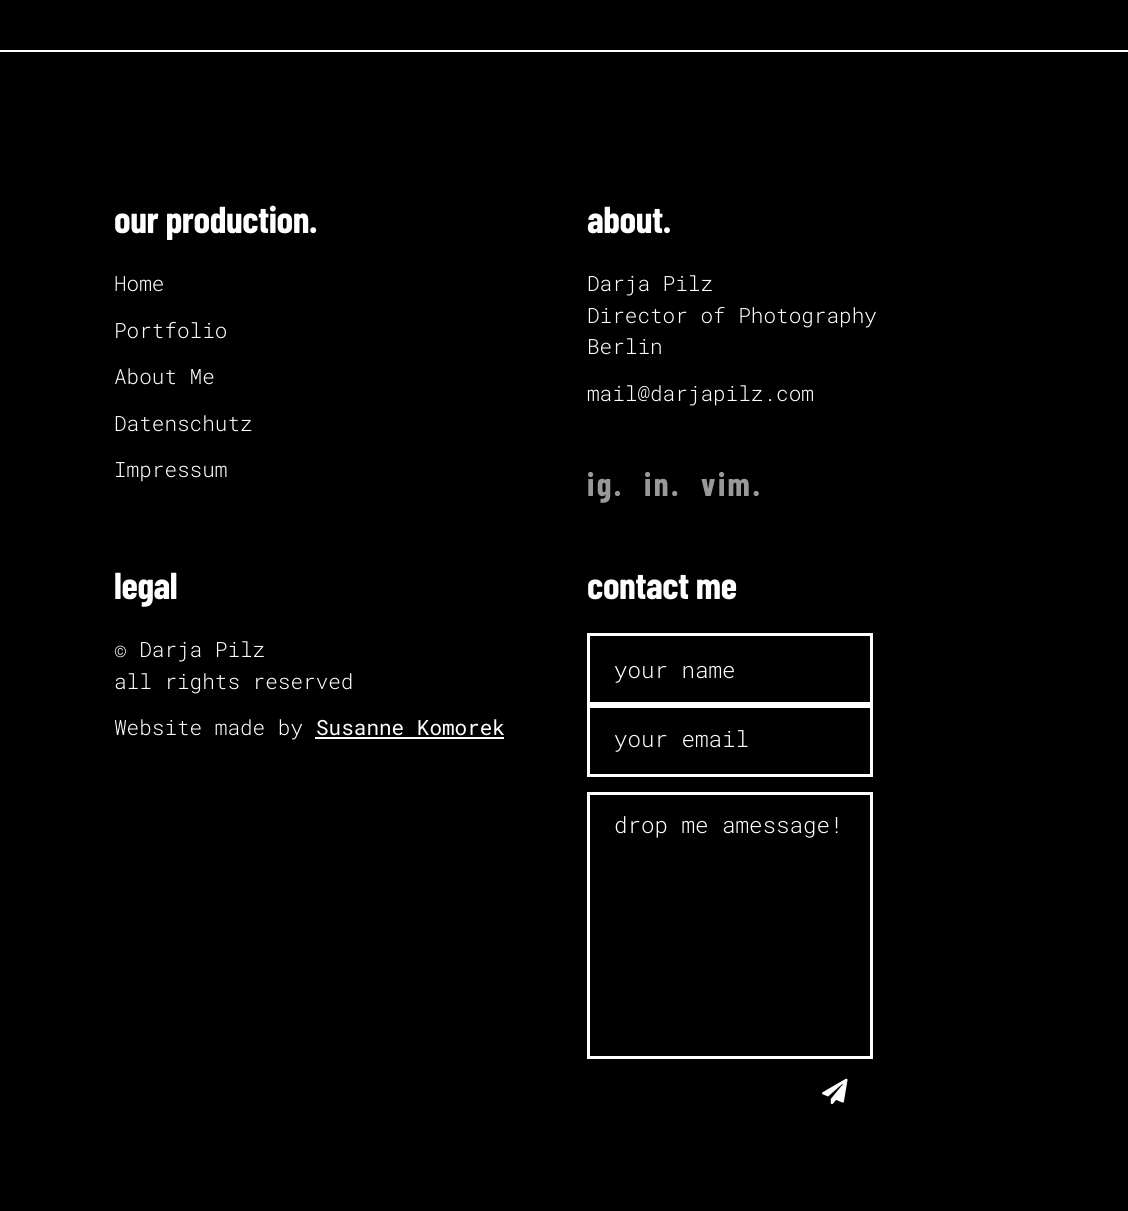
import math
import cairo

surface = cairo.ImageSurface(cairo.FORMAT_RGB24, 1128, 1211)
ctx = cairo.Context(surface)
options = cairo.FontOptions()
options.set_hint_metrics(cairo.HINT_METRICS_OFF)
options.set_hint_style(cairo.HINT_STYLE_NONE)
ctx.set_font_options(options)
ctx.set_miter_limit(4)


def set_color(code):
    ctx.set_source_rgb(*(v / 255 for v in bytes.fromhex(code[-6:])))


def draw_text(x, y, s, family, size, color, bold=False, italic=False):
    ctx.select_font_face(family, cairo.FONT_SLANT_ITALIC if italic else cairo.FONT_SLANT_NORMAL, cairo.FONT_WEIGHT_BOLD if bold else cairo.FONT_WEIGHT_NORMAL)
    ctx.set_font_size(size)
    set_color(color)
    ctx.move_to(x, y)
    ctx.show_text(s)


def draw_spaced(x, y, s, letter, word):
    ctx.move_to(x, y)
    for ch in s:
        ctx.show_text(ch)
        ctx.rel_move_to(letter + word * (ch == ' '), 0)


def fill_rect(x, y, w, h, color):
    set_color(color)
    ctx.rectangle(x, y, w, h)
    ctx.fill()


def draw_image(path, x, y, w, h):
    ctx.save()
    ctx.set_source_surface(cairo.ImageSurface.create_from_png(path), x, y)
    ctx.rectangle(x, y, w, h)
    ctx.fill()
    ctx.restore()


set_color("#000000")
ctx.paint()
fill_rect(0, 50, 1128, 2, "#ffffff")
ctx.select_font_face("Barlow Condensed", cairo.FONT_SLANT_NORMAL, cairo.FONT_WEIGHT_BOLD)
ctx.set_font_size(37.5)
draw_spaced(114, 233, "our production.", -0.4, 0)
draw_text(114, 291, "Home", "Roboto Mono Light", 21, "#ffffff")
draw_text(114, 338, "Portfolio", "Roboto Mono Light", 21, "#ffffff")
draw_text(114, 384, "About Me", "Roboto Mono Light", 21, "#ffffff")
draw_text(114, 431, "Datenschutz", "Roboto Mono Light", 21, "#ffffff")
draw_text(114, 477, "Impressum", "Roboto Mono Light", 21, "#ffffff")
ctx.select_font_face("Barlow Condensed", cairo.FONT_SLANT_NORMAL, cairo.FONT_WEIGHT_BOLD)
ctx.set_font_size(37.5)
draw_spaced(587, 233, "about.", -0.4, 0)
draw_text(587, 291, "Darja Pilz", "Roboto Mono Light", 21, "#ffffff")
draw_text(587, 323, "Director of Photography", "Roboto Mono Light", 21, "#ffffff")
draw_text(587, 354, "Berlin", "Roboto Mono Light", 21, "#ffffff")
draw_text(587, 401, "mail@darjapilz.com", "Roboto Mono Light", 21, "#ffffff")
ctx.select_font_face("Barlow Condensed", cairo.FONT_SLANT_NORMAL, cairo.FONT_WEIGHT_BOLD)
ctx.set_font_size(33)
set_color("#999999")
draw_spaced(587, 496, "ig.", 2.5, 0)
draw_spaced(644, 496, "in.", 2.5, 0)
draw_spaced(701, 496, "vim.", 2.5, 0)
ctx.set_font_size(37.5)
set_color("#ffffff")
draw_spaced(114, 599, "legal", -0.4, 0)
draw_text(114, 657, "© Darja Pilz", "Roboto Mono Light", 21, "#ffffff")
draw_text(114, 689, "all rights reserved", "Roboto Mono Light", 21, "#ffffff")
draw_text(114, 735, "Website made by", "Roboto Mono Light", 21, "#ffffff")
draw_text(316, 735, "Susanne Komorek", "Roboto Mono", 21, "#ffffff")
fill_rect(315, 737, 189, 2, "#ffffff")
ctx.select_font_face("Barlow Condensed", cairo.FONT_SLANT_NORMAL, cairo.FONT_WEIGHT_BOLD)
ctx.set_font_size(37.5)
draw_spaced(587, 599, "contact me", -0.4, 0)
ctx.rectangle(588.5, 634.5, 283, 69)
ctx.set_line_width(3)
ctx.stroke()
draw_text(614, 678, "your name", "Roboto Mono Light", 22.5, "#ffffff")
ctx.rectangle(588.5, 706.5, 283, 69)
ctx.stroke()
draw_text(614, 747, "your email", "Roboto Mono Light", 22.5, "#ffffff")
ctx.rectangle(588.5, 793.5, 283, 264)
ctx.stroke()
draw_text(614, 833, "drop me amessage!", "Roboto Mono Light", 22.5, "#ffffff")
draw_image("assets/img1.png", 822, 1078, 26, 27)
surface.write_to_png("output.png")
